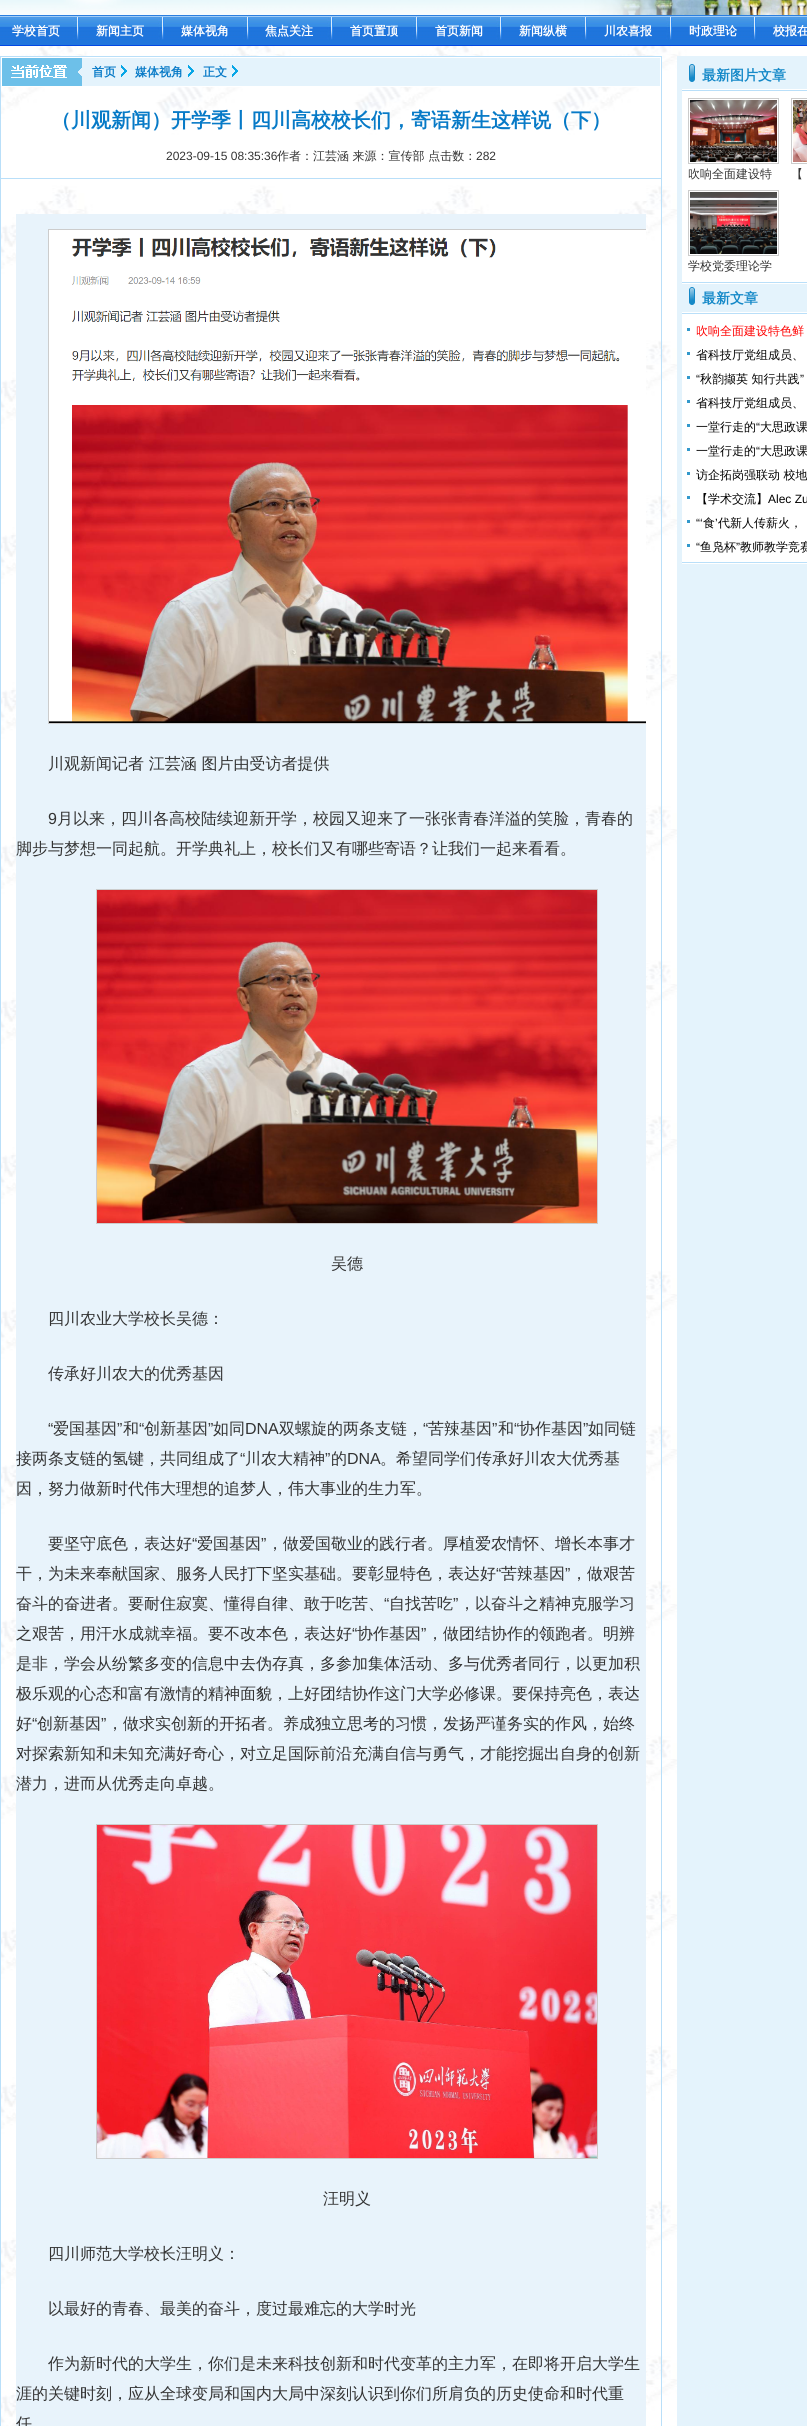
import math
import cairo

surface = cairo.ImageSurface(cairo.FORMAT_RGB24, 807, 2426)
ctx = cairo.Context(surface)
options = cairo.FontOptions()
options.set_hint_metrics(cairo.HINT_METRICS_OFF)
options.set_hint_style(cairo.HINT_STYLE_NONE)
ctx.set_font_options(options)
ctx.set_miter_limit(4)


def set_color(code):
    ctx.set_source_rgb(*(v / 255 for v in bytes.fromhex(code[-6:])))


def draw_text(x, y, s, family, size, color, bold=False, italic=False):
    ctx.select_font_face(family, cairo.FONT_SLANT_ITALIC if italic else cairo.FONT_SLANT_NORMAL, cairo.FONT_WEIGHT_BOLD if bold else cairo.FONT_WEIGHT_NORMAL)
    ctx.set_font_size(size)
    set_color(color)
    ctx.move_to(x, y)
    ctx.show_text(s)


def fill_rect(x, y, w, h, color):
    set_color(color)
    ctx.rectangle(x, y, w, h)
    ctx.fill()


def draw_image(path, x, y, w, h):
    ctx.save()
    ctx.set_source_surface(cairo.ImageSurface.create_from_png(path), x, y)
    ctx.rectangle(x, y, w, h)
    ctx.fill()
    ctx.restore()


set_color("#ffffff")
ctx.paint()
draw_image("assets/img1.png", 0, 46, 807, 2380)
draw_image("assets/img2.png", 0, 0, 807, 15)
draw_image("assets/img3.png", 0, 15, 807, 31)
draw_text(12, 35, "学校首页", "WenQuanYi Zen Hei", 12, "#ffffff", bold=True)
draw_image("assets/img4.png", 73, 17, 7, 23)
draw_text(96, 35, "新闻主页", "WenQuanYi Zen Hei", 12, "#ffffff", bold=True)
draw_image("assets/img5.png", 158, 17, 6, 23)
draw_text(181, 35, "媒体视角", "WenQuanYi Zen Hei", 12, "#ffffff", bold=True)
draw_image("assets/img4.png", 243, 17, 7, 23)
draw_text(265, 35, "焦点关注", "WenQuanYi Zen Hei", 12, "#ffffff", bold=True)
draw_image("assets/img4.png", 327, 17, 7, 23)
draw_text(350, 35, "首页置顶", "WenQuanYi Zen Hei", 12, "#ffffff", bold=True)
draw_image("assets/img4.png", 412, 17, 7, 23)
draw_text(435, 35, "首页新闻", "WenQuanYi Zen Hei", 12, "#ffffff", bold=True)
draw_image("assets/img4.png", 496, 17, 7, 23)
draw_text(519, 35, "新闻纵横", "WenQuanYi Zen Hei", 12, "#ffffff", bold=True)
draw_image("assets/img5.png", 581, 17, 6, 23)
draw_text(604, 35, "川农喜报", "WenQuanYi Zen Hei", 12, "#ffffff", bold=True)
draw_image("assets/img4.png", 666, 17, 7, 23)
draw_text(689, 35, "时政理论", "WenQuanYi Zen Hei", 12, "#ffffff", bold=True)
draw_image("assets/img4.png", 750, 17, 7, 23)
draw_text(773, 35, "校报在", "WenQuanYi Zen Hei", 12, "#ffffff", bold=True)
fill_rect(677, 56, 130, 2370, "#e4f3fc")
ctx.rectangle(0.5, 56.5, 661, 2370)
set_color("#b9dff9")
ctx.set_line_width(1)
ctx.stroke()
fill_rect(82, 58, 578, 28, "#e4f3fc")
draw_image("assets/img6.png", 2, 58, 80, 28)
ctx.rectangle(1.5, 57.5, 659, 29)
set_color("#ffffff")
ctx.stroke()
draw_text(92, 76, "首页", "WenQuanYi Zen Hei", 12, "#077ac7", bold=True)
draw_image("assets/img7.png", 121, 65, 6, 12)
draw_text(135, 76, "媒体视角", "WenQuanYi Zen Hei", 12, "#077ac7", bold=True)
draw_image("assets/img7.png", 188, 65, 6, 12)
draw_text(203, 76, "正文", "WenQuanYi Zen Hei", 12, "#077ac7", bold=True)
draw_image("assets/img7.png", 232, 65, 6, 12)
fill_rect(1, 178, 660, 1, "#b9dff9")
draw_text(51, 127, "（川观新闻）开学季丨四川高校校长们，寄语新生这样说（下）", "WenQuanYi Zen Hei", 20, "#077ac7", bold=True)
draw_text(166, 160, "2023-09-15 08:35:36", "Liberation Sans", 12, "#333333")
draw_text(277, 160, "作者：江芸涵 来源：宣传部 点击数：", "WenQuanYi Zen Hei Medium", 12, "#333333")
draw_text(476, 160, "282", "Liberation Sans", 12, "#333333")
fill_rect(16, 214, 630, 2212, "#e8f3fb")
ctx.save()
ctx.rectangle(16, 214, 630, 510)
ctx.clip()
ctx.rectangle(48.5, 229.5, 601, 494)
set_color("#cccccc")
ctx.stroke()
ctx.restore()
draw_image("assets/img8.png", 49, 230, 597, 493)
draw_text(48, 769, "川观新闻记者 江芸涵 图片由受访者提供", "WenQuanYi Zen Hei Medium", 16, "#333333")
draw_text(48, 824, "9", "Liberation Sans", 16, "#333333")
draw_text(57, 824, "月以来，四川各高校陆续迎新开学，校园又迎来了一张张青春洋溢的笑脸，青春的", "WenQuanYi Zen Hei Medium", 16, "#333333")
draw_text(16, 854, "脚步与梦想一同起航。开学典礼上，校长们又有哪些寄语？让我们一起来看看。", "WenQuanYi Zen Hei Medium", 16, "#333333")
ctx.rectangle(96.5, 889.5, 501, 334)
set_color("#cccccc")
ctx.stroke()
draw_image("assets/img9.png", 97, 890, 500, 333)
draw_text(331, 1269, "吴德", "WenQuanYi Zen Hei Medium", 16, "#333333")
draw_text(48, 1324, "四川农业大学校长吴德：", "WenQuanYi Zen Hei Medium", 16, "#333333")
draw_text(48, 1379, "传承好川农大的优秀基因", "WenQuanYi Zen Hei Medium", 16, "#333333")
draw_text(48, 1434, "“", "Liberation Sans", 16, "#333333")
draw_text(53, 1434, "爱国基因", "WenQuanYi Zen Hei Medium", 16, "#333333")
draw_text(117, 1434, "”", "Liberation Sans", 16, "#333333")
draw_text(123, 1434, "和", "WenQuanYi Zen Hei Medium", 16, "#333333")
draw_text(139, 1434, "“", "Liberation Sans", 16, "#333333")
draw_text(144, 1434, "创新基因", "WenQuanYi Zen Hei Medium", 16, "#333333")
draw_text(208, 1434, "”", "Liberation Sans", 16, "#333333")
draw_text(213, 1434, "如同", "WenQuanYi Zen Hei Medium", 16, "#333333")
draw_text(245, 1434, "DNA", "Liberation Sans", 16, "#333333")
draw_text(279, 1434, "双螺旋的两条支链，", "WenQuanYi Zen Hei Medium", 16, "#333333")
draw_text(423, 1434, "“", "Liberation Sans", 16, "#333333")
draw_text(428, 1434, "苦辣基因", "WenQuanYi Zen Hei Medium", 16, "#333333")
draw_text(492, 1434, "”", "Liberation Sans", 16, "#333333")
draw_text(498, 1434, "和", "WenQuanYi Zen Hei Medium", 16, "#333333")
draw_text(514, 1434, "“", "Liberation Sans", 16, "#333333")
draw_text(519, 1434, "协作基因", "WenQuanYi Zen Hei Medium", 16, "#333333")
draw_text(583, 1434, "”", "Liberation Sans", 16, "#333333")
draw_text(588, 1434, "如同链", "WenQuanYi Zen Hei Medium", 16, "#333333")
draw_text(16, 1464, "接两条支链的氢键，共同组成了", "WenQuanYi Zen Hei Medium", 16, "#333333")
draw_text(240, 1464, "“", "Liberation Sans", 16, "#333333")
draw_text(245, 1464, "川农大精神", "WenQuanYi Zen Hei Medium", 16, "#333333")
draw_text(325, 1464, "”", "Liberation Sans", 16, "#333333")
draw_text(331, 1464, "的", "WenQuanYi Zen Hei Medium", 16, "#333333")
draw_text(347, 1464, "DNA", "Liberation Sans", 16, "#333333")
draw_text(380, 1464, "。希望同学们传承好川农大优秀基", "WenQuanYi Zen Hei Medium", 16, "#333333")
draw_text(16, 1494, "因，努力做新时代伟大理想的追梦人，伟大事业的生力军。", "WenQuanYi Zen Hei Medium", 16, "#333333")
draw_text(48, 1549, "要坚守底色，表达好", "WenQuanYi Zen Hei Medium", 16, "#333333")
draw_text(192, 1549, "“", "Liberation Sans", 16, "#333333")
draw_text(197, 1549, "爱国基因", "WenQuanYi Zen Hei Medium", 16, "#333333")
draw_text(261, 1549, "”", "Liberation Sans", 16, "#333333")
draw_text(267, 1549, "，做爱国敬业的践行者。厚植爱农情怀、增长本事才", "WenQuanYi Zen Hei Medium", 16, "#333333")
draw_text(16, 1579, "干，为未来奉献国家、服务人民打下坚实基础。要彰显特色，表达好", "WenQuanYi Zen Hei Medium", 16, "#333333")
draw_text(496, 1579, "“", "Liberation Sans", 16, "#333333")
draw_text(501, 1579, "苦辣基因", "WenQuanYi Zen Hei Medium", 16, "#333333")
draw_text(565, 1579, "”", "Liberation Sans", 16, "#333333")
draw_text(571, 1579, "，做艰苦", "WenQuanYi Zen Hei Medium", 16, "#333333")
draw_text(16, 1609, "奋斗的奋进者。要耐住寂寞、懂得自律、敢于吃苦、", "WenQuanYi Zen Hei Medium", 16, "#333333")
draw_text(384, 1609, "“", "Liberation Sans", 16, "#333333")
draw_text(389, 1609, "自找苦吃", "WenQuanYi Zen Hei Medium", 16, "#333333")
draw_text(453, 1609, "”", "Liberation Sans", 16, "#333333")
draw_text(459, 1609, "，以奋斗之精神克服学习", "WenQuanYi Zen Hei Medium", 16, "#333333")
draw_text(16, 1639, "之艰苦，用汗水成就幸福。要不改本色，表达好", "WenQuanYi Zen Hei Medium", 16, "#333333")
draw_text(352, 1639, "“", "Liberation Sans", 16, "#333333")
draw_text(357, 1639, "协作基因", "WenQuanYi Zen Hei Medium", 16, "#333333")
draw_text(421, 1639, "”", "Liberation Sans", 16, "#333333")
draw_text(427, 1639, "，做团结协作的领跑者。明辨", "WenQuanYi Zen Hei Medium", 16, "#333333")
draw_text(16, 1669, "是非，学会从纷繁多变的信息中去伪存真，多参加集体活动、多与优秀者同行，以更加积", "WenQuanYi Zen Hei Medium", 16, "#333333")
draw_text(16, 1699, "极乐观的心态和富有激情的精神面貌，上好团结协作这门大学必修课。要保持亮色，表达", "WenQuanYi Zen Hei Medium", 16, "#333333")
draw_text(16, 1729, "好", "WenQuanYi Zen Hei Medium", 16, "#333333")
draw_text(32, 1729, "“", "Liberation Sans", 16, "#333333")
draw_text(37, 1729, "创新基因", "WenQuanYi Zen Hei Medium", 16, "#333333")
draw_text(101, 1729, "”", "Liberation Sans", 16, "#333333")
draw_text(107, 1729, "，做求实创新的开拓者。养成独立思考的习惯，发扬严谨务实的作风，始终", "WenQuanYi Zen Hei Medium", 16, "#333333")
draw_text(16, 1759, "对探索新知和未知充满好奇心，对立足国际前沿充满自信与勇气，才能挖掘出自身的创新", "WenQuanYi Zen Hei Medium", 16, "#333333")
draw_text(16, 1789, "潜力，进而从优秀走向卓越。", "WenQuanYi Zen Hei Medium", 16, "#333333")
ctx.rectangle(96.5, 1824.5, 501, 334)
set_color("#cccccc")
ctx.stroke()
draw_image("assets/img10.png", 97, 1825, 500, 333)
draw_text(323, 2204, "汪明义", "WenQuanYi Zen Hei Medium", 16, "#333333")
draw_text(48, 2259, "四川师范大学校长汪明义：", "WenQuanYi Zen Hei Medium", 16, "#333333")
draw_text(48, 2314, "以最好的青春、最美的奋斗，度过最难忘的大学时光", "WenQuanYi Zen Hei Medium", 16, "#333333")
draw_text(48, 2369, "作为新时代的大学生，你们是未来科技创新和时代变革的主力军，在即将开启大学生", "WenQuanYi Zen Hei Medium", 16, "#333333")
draw_text(16, 2399, "涯的关键时刻，应从全球变局和国内大局中深刻认识到你们所肩负的历史使命和时代重", "WenQuanYi Zen Hei Medium", 16, "#333333")
draw_text(16, 2429, "任", "WenQuanYi Zen Hei Medium", 16, "#333333")
draw_image("assets/img11.png", 689, 64, 6, 18)
fill_rect(682, 89, 125, 1, "#ffffff")
draw_text(702, 80, "最新图片文章", "WenQuanYi Zen Hei", 14, "#1589c8", bold=True)
fill_rect(682, 91, 125, 193, "#ffffff")
fill_rect(682, 282, 125, 1, "#b9dff9")
fill_rect(682, 90, 125, 1, "#b9dff9")
ctx.rectangle(688.5, 98.5, 90, 65)
set_color("#cccccc")
ctx.stroke()
draw_image("assets/img12.png", 690, 100, 87, 62)
draw_text(688, 178, "吹响全面建设特", "WenQuanYi Zen Hei Medium", 12, "#333333")
ctx.rectangle(791.5, 98.5, 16, 65)
set_color("#cccccc")
ctx.stroke()
draw_image("assets/img13.png", 793, 100, 14, 62)
draw_text(791, 178, "【", "WenQuanYi Zen Hei Medium", 12, "#333333")
ctx.rectangle(688.5, 190.5, 90, 65)
set_color("#cccccc")
ctx.stroke()
draw_image("assets/img14.png", 690, 192, 87, 62)
draw_text(688, 270, "学校党委理论学", "WenQuanYi Zen Hei Medium", 12, "#333333")
draw_image("assets/img11.png", 689, 287, 6, 18)
fill_rect(682, 312, 125, 1, "#ffffff")
draw_text(702, 303, "最新文章", "WenQuanYi Zen Hei", 14, "#1589c8", bold=True)
fill_rect(682, 314, 125, 250, "#ffffff")
fill_rect(682, 562, 125, 1, "#b9dff9")
fill_rect(682, 313, 125, 1, "#b9dff9")
fill_rect(687, 328, 3, 3, "#3399cc")
draw_text(696, 335, "吹响全面建设特色鲜", "WenQuanYi Zen Hei Medium", 12, "#ff0000")
fill_rect(687, 352, 3, 3, "#3399cc")
draw_text(696, 359, "省科技厅党组成员、", "WenQuanYi Zen Hei Medium", 12, "#000000")
fill_rect(687, 376, 3, 3, "#3399cc")
draw_text(696, 383, "“", "Liberation Sans", 12, "#000000")
draw_text(700, 383, "秋韵撷英 知行共践", "WenQuanYi Zen Hei Medium", 12, "#000000")
draw_text(800, 383, "”", "Liberation Sans", 12, "#000000")
fill_rect(687, 400, 3, 3, "#3399cc")
draw_text(696, 407, "省科技厅党组成员、", "WenQuanYi Zen Hei Medium", 12, "#000000")
fill_rect(687, 424, 3, 3, "#3399cc")
draw_text(696, 431, "一堂行走的", "WenQuanYi Zen Hei Medium", 12, "#000000")
draw_text(756, 431, "“", "Liberation Sans", 12, "#000000")
draw_text(760, 431, "大思政课", "WenQuanYi Zen Hei Medium", 12, "#000000")
fill_rect(687, 448, 3, 3, "#3399cc")
draw_text(696, 455, "一堂行走的", "WenQuanYi Zen Hei Medium", 12, "#000000")
draw_text(756, 455, "“", "Liberation Sans", 12, "#000000")
draw_text(760, 455, "大思政课", "WenQuanYi Zen Hei Medium", 12, "#000000")
fill_rect(687, 472, 3, 3, "#3399cc")
draw_text(696, 479, "访企拓岗强联动 校地", "WenQuanYi Zen Hei Medium", 12, "#000000")
fill_rect(687, 496, 3, 3, "#3399cc")
draw_text(696, 503, "【学术交流】", "WenQuanYi Zen Hei Medium", 12, "#000000")
draw_text(768, 503, "Alec Zu", "Liberation Sans", 12, "#000000")
fill_rect(687, 520, 3, 3, "#3399cc")
draw_text(696, 527, "“‘", "Liberation Sans", 12, "#000000")
draw_text(703, 527, "食", "WenQuanYi Zen Hei Medium", 12, "#000000")
draw_text(715, 527, "’", "Liberation Sans", 12, "#000000")
draw_text(718, 527, "代新人传薪火，", "WenQuanYi Zen Hei Medium", 12, "#000000")
fill_rect(687, 544, 3, 3, "#3399cc")
draw_text(696, 551, "“", "Liberation Sans", 12, "#000000")
draw_text(700, 551, "鱼凫杯", "WenQuanYi Zen Hei Medium", 12, "#000000")
draw_text(736, 551, "”", "Liberation Sans", 12, "#000000")
draw_text(740, 551, "教师教学竞赛", "WenQuanYi Zen Hei Medium", 12, "#000000")
surface.write_to_png("output.png")
